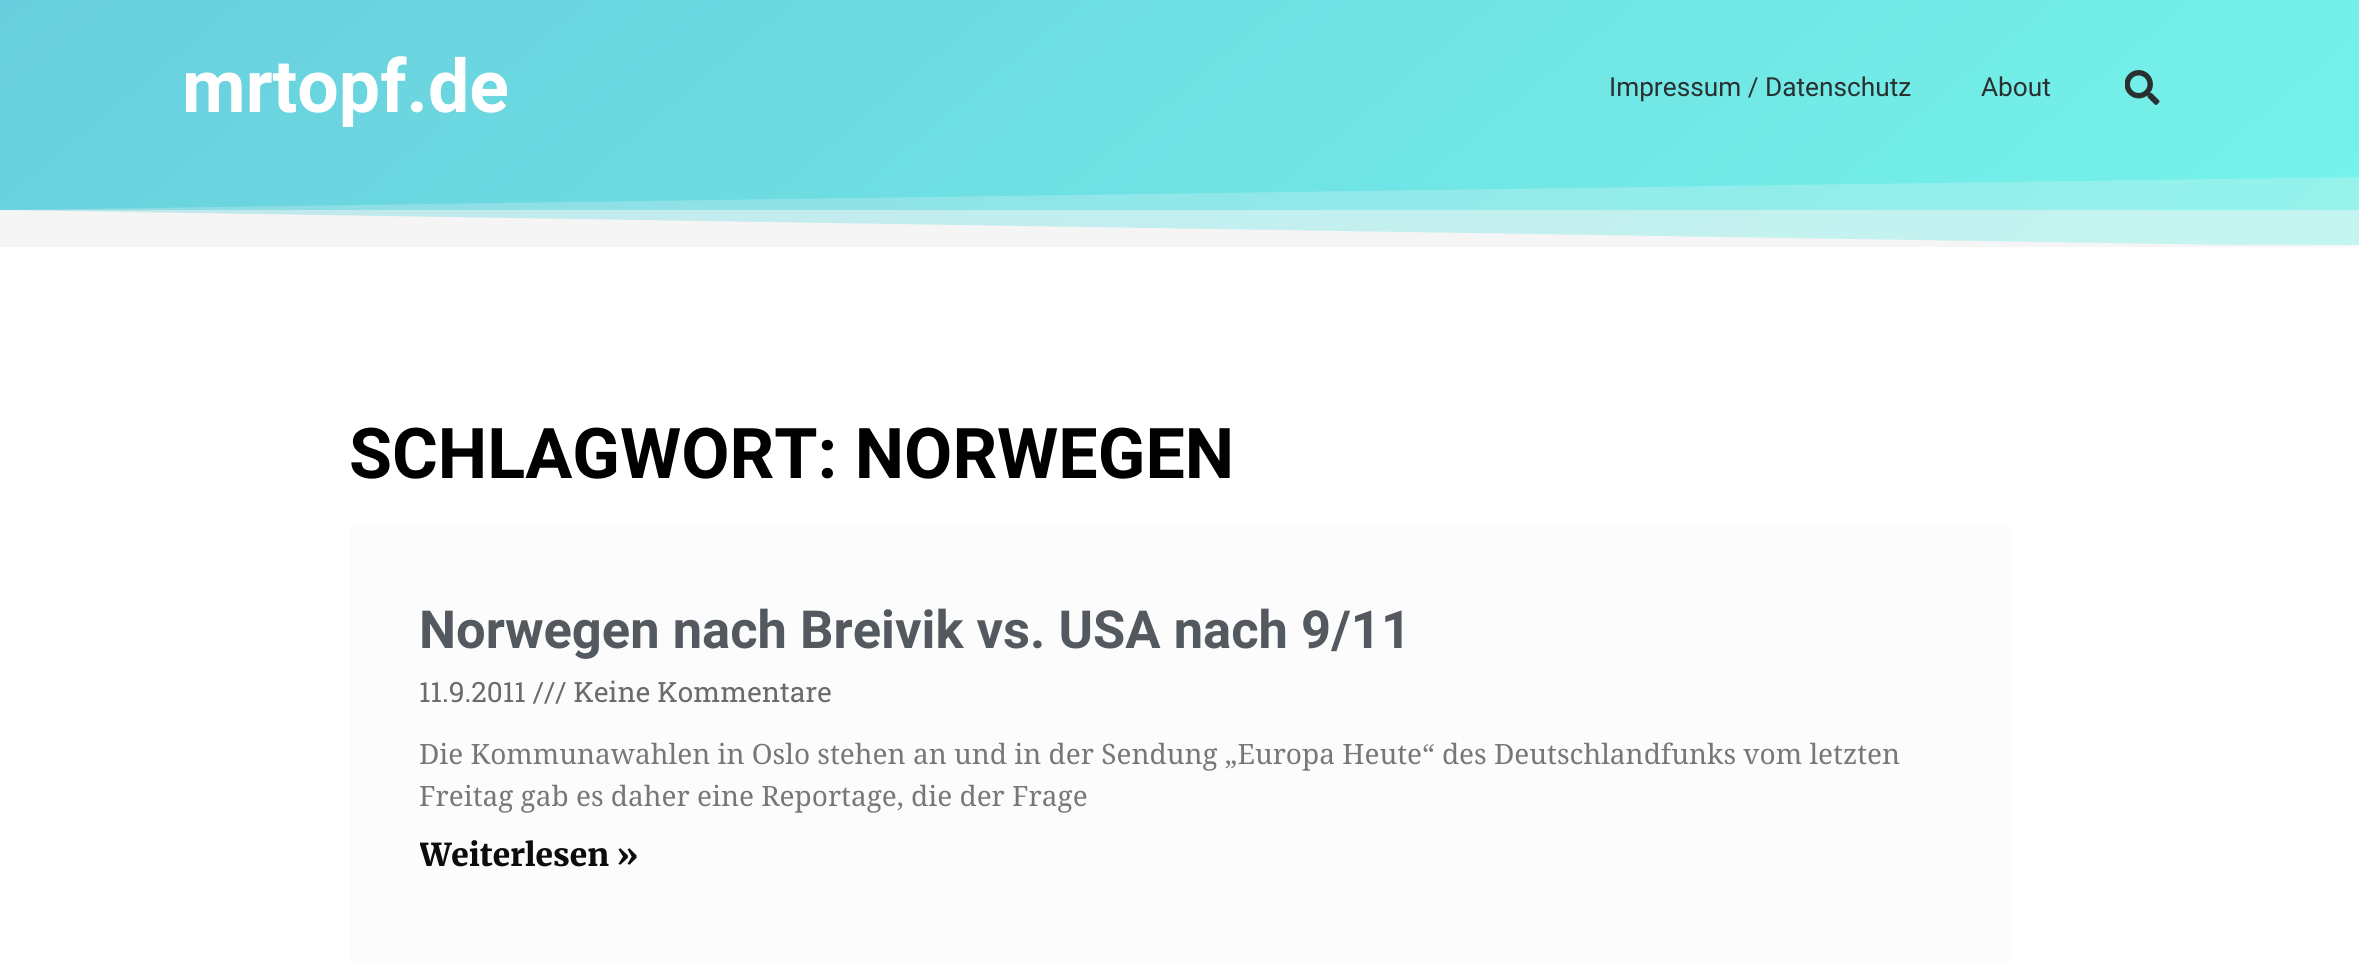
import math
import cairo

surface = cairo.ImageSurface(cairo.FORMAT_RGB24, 2359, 962)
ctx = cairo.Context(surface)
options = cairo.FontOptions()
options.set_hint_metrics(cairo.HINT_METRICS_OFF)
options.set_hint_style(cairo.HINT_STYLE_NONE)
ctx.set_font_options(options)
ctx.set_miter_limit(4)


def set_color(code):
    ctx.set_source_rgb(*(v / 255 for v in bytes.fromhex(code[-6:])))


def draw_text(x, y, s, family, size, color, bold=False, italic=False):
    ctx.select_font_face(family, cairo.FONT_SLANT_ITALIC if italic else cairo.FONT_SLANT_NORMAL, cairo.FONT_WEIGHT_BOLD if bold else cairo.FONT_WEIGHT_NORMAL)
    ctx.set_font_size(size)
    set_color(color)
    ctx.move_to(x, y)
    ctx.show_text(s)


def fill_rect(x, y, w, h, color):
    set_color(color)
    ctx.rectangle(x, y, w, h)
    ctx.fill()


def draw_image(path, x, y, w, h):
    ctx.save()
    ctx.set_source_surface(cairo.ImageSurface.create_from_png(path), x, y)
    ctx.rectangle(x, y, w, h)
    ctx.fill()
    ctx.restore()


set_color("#ffffff")
ctx.paint()
fill_rect(2236, 245, 123, 2, "#fafafa")
gradient = cairo.LinearGradient(1727, 775, 632, -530)
gradient.add_color_stop_rgba(0, 0.459, 0.957, 0.918, 1)
gradient.add_color_stop_rgba(1, 0.408, 0.808, 0.867, 1)
ctx.set_source(gradient)
ctx.rectangle(0, 0, 2359, 210)
ctx.fill()
gradient = cairo.LinearGradient(1727, 775, 632, -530)
gradient.add_color_stop_rgba(0, 0.71, 0.961, 0.941, 1)
gradient.add_color_stop_rgba(1, 0.686, 0.886, 0.914, 1)
ctx.set_source(gradient)
ctx.rectangle(3, 210, 2356, 35)
ctx.fill()
draw_text(182, 112, "mrtopf.de", "Roboto", 73.5, "#ffffff", bold=True)
draw_text(1609, 96, "Impressum / Datenschutz", "Roboto", 26.25, "#2a302f")
draw_text(1981, 96, "About", "Roboto", 26.25, "#2a302f")
draw_image("assets/img1.png", 2125, 70, 35, 35)
set_color("#f5f5f5")
ctx.new_path()
ctx.move_to(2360, 247)
ctx.line_to(-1, 247)
ctx.line_to(-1, 210)
ctx.close_path()
ctx.fill()
ctx.set_source_rgba(0.961, 0.961, 0.961, 0.25)
ctx.new_path()
ctx.move_to(-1, 247)
ctx.line_to(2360, 247)
ctx.line_to(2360, 177)
ctx.line_to(-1, 210)
ctx.close_path()
ctx.fill()
draw_text(349, 478, "SCHLAGWORT: NORWEGEN", "Roboto", 70, "#000000", bold=True)
fill_rect(350, 525, 1661, 437, "#fcfcfc")
draw_text(419, 648, "Norwegen nach Breivik vs. USA nach 9/11", "Roboto", 52.5, "#54595f", bold=True)
draw_text(419, 702, "11.9.2011 /// Keine Kommentare", "Roboto Slab", 28, "#6b6b6b")
draw_text(419, 764, "Die Kommunawahlen in Oslo stehen an und in der Sendung „Europa Heute“ des Deutschlandfunks vom letzten", "Noto Serif", 28, "#777777")
draw_text(419, 806, "Freitag gab es daher eine Reportage, die der Frage", "Noto Serif", 28, "#777777")
ctx.save()
ctx.rectangle(420, 595, 1521, 285)
ctx.clip()
draw_text(419, 866, "Weiterlesen »", "Merriweather Black", 31.5, "#0c0c0c")
ctx.restore()
surface.write_to_png("output.png")
